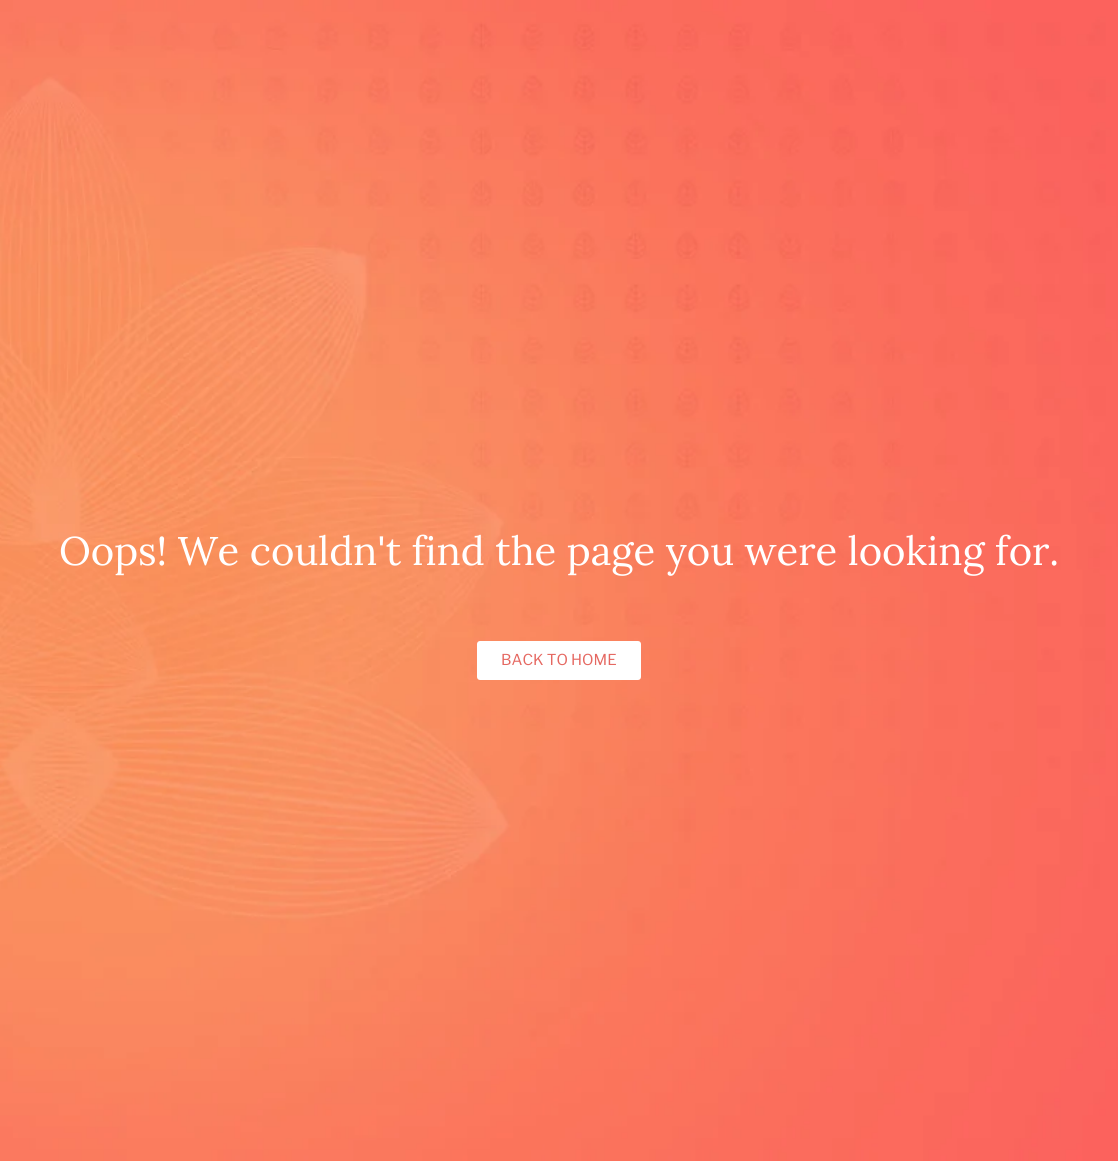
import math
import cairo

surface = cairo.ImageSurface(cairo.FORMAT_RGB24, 1118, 1161)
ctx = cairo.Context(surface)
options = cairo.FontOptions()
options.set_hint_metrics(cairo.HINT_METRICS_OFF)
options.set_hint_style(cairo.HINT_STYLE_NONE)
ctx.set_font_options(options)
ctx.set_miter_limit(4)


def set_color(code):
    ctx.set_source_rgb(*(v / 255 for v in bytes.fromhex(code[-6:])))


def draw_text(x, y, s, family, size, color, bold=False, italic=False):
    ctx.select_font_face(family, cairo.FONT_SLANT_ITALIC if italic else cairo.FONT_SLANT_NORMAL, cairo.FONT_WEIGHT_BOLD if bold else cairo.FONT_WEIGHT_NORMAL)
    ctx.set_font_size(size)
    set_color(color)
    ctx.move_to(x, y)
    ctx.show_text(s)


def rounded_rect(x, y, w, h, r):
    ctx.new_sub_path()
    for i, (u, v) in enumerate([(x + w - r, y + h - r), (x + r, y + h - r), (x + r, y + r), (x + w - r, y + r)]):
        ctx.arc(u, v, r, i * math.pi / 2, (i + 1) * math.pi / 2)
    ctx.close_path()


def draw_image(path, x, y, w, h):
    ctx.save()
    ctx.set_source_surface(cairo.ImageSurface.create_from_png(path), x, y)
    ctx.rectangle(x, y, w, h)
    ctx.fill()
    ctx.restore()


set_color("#ffffff")
ctx.paint()
draw_image("assets/img1.png", 0, 0, 1118, 1161)
draw_text(59, 565, "Oops! We couldn't find the page you were looking for.", "Lora", 40, "#ffffff")
rounded_rect(477, 641, 164, 39, 3)
ctx.fill()
draw_text(501, 665, "BACK TO HOME", "Libre Franklin", 15, "#e56861")
surface.write_to_png("output.png")
